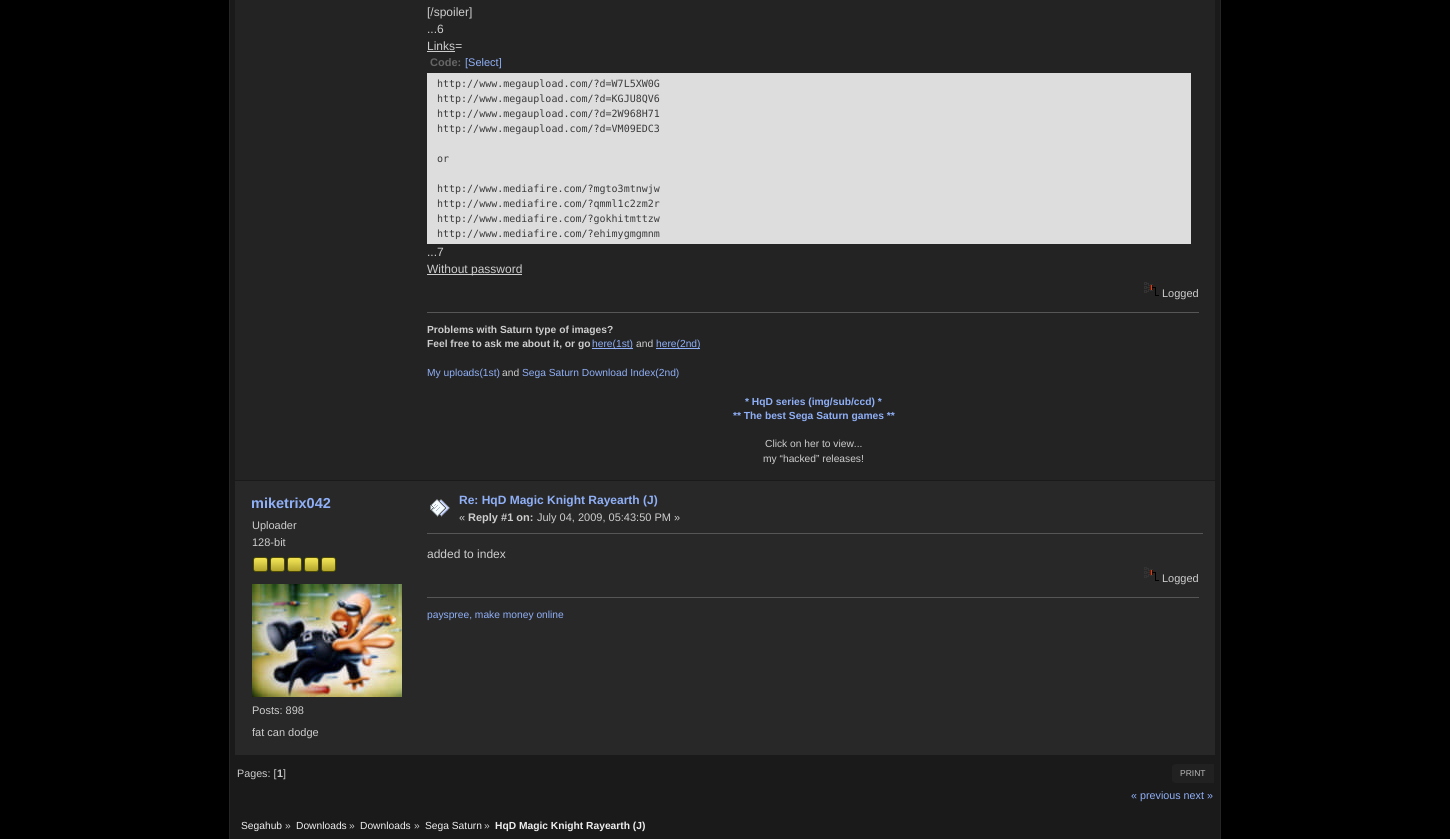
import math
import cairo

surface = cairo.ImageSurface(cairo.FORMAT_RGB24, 1450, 839)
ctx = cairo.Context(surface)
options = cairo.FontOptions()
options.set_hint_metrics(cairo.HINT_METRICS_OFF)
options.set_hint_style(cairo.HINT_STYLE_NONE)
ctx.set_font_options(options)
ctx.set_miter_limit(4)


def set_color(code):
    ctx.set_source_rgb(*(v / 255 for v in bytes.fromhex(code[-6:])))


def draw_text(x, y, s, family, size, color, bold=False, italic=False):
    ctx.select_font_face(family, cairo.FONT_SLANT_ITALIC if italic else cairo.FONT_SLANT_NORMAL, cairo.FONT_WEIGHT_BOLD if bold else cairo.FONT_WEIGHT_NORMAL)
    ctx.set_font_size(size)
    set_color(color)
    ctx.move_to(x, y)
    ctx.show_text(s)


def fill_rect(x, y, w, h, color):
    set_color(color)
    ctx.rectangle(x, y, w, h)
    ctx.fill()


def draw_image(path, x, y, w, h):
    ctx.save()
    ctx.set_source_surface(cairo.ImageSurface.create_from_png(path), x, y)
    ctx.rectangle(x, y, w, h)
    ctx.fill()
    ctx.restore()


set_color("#000000")
ctx.paint()
fill_rect(1220, 0, 1, 839, "#252525")
fill_rect(229, 0, 1, 839, "#252525")
fill_rect(230, 0, 990, 839, "#1a1a1a")
fill_rect(235, 0, 980, 480, "#232323")
draw_text(427, 16, "[/spoiler]", "Liberation Sans", 12, "#cdcdcd")
draw_text(427, 33, "...6", "Liberation Sans", 12, "#cdcdcd")
draw_text(427, 50, "Links", "Liberation Sans", 12, "#cdcdcd")
fill_rect(427, 51, 28, 1, "#cdcdcd")
draw_text(455, 50, "=", "Liberation Sans", 12, "#cdcdcd", italic=True)
draw_text(430, 66, "Code:", "Liberation Sans", 11, "#666666", bold=True)
draw_text(465, 66, "[Select]", "Liberation Sans", 11, "#8faff7")
fill_rect(427, 73, 764, 171, "#dddddd")
draw_text(437, 87, "http://www.megaupload.com/?d=W7L5XW0G", "DejaVu Sans Mono", 10, "#3a3a3a")
draw_text(437, 102, "http://www.megaupload.com/?d=KGJU8QV6", "DejaVu Sans Mono", 10, "#3a3a3a")
draw_text(437, 117, "http://www.megaupload.com/?d=2W968H71", "DejaVu Sans Mono", 10, "#3a3a3a")
draw_text(437, 132, "http://www.megaupload.com/?d=VM09EDC3", "DejaVu Sans Mono", 10, "#3a3a3a")
draw_text(437, 162, "or", "DejaVu Sans Mono", 10, "#3a3a3a")
draw_text(437, 192, "http://www.mediafire.com/?mgto3mtnwjw", "DejaVu Sans Mono", 10, "#3a3a3a")
draw_text(437, 207, "http://www.mediafire.com/?qmml1c2zm2r", "DejaVu Sans Mono", 10, "#3a3a3a")
draw_text(437, 222, "http://www.mediafire.com/?gokhitmttzw", "DejaVu Sans Mono", 10, "#3a3a3a")
draw_text(437, 237, "http://www.mediafire.com/?ehimygmgmnm", "DejaVu Sans Mono", 10, "#3a3a3a")
draw_text(427, 256, "...7", "Liberation Sans", 12, "#cdcdcd")
fill_rect(427, 274, 95, 1, "#cdcdcd")
draw_text(427, 273, "Without password", "Liberation Sans", 12, "#cdcdcd")
draw_image("assets/img1.png", 1144, 282, 15, 14)
draw_text(1162, 297, "Logged", "Liberation Sans", 11, "#cdcdcd")
fill_rect(427, 312, 772, 1, "#565656")
draw_text(427, 333, "Problems with Saturn type of images?", "Liberation Sans", 10.25, "#cdcdcd", bold=True)
draw_text(427, 347, "Feel free to ask me about it, or go", "Liberation Sans", 10.25, "#cdcdcd", bold=True)
fill_rect(592, 348, 41, 1, "#8faff7")
draw_text(592, 347, "here(1st)", "Liberation Sans", 10.25, "#8faff7")
draw_text(636, 347, "and", "Liberation Sans", 10.25, "#cdcdcd")
fill_rect(656, 348, 44, 1, "#8faff7")
draw_text(656, 347, "here(2nd)", "Liberation Sans", 10.25, "#8faff7")
draw_text(427, 376, "My uploads(1st)", "Liberation Sans", 10.25, "#8faff7")
draw_text(502, 376, "and", "Liberation Sans", 10.25, "#cdcdcd")
draw_text(522, 376, "Sega Saturn Download Index(2nd)", "Liberation Sans", 10.25, "#8faff7")
draw_text(745, 405, "* HqD series (img/sub/ccd) *", "Liberation Sans", 10.25, "#8faff7", bold=True)
draw_text(733, 419, "** The best Sega Saturn games **", "Liberation Sans", 10.25, "#8faff7", bold=True)
draw_text(765, 447, "Click on her to view...", "Liberation Sans", 10.25, "#cdcdcd")
draw_text(763, 462, "my “hacked” releases!", "Liberation Sans", 10.25, "#cdcdcd")
fill_rect(235, 481, 980, 274, "#282828")
draw_text(251, 508, "miketrix042", "Liberation Sans", 14.5, "#8faff7", bold=True)
draw_text(252, 529, "Uploader", "Liberation Sans", 11, "#cdcdcd")
draw_text(252, 546, "128-bit", "Liberation Sans", 11, "#cdcdcd")
draw_image("assets/img2.png", 253, 557, 15, 15)
draw_image("assets/img2.png", 270, 557, 15, 15)
draw_image("assets/img2.png", 287, 557, 15, 15)
draw_image("assets/img2.png", 304, 557, 15, 15)
draw_image("assets/img2.png", 321, 557, 15, 15)
draw_image("assets/img3.png", 252, 584, 150, 113)
draw_text(252, 714, "Posts: 898", "Liberation Sans", 11, "#cdcdcd")
draw_text(252, 736, "fat can dodge", "Liberation Sans", 11, "#cdcdcd")
draw_image("assets/img4.png", 430, 499, 20, 18)
draw_text(459, 504, "Re: HqD Magic Knight Rayearth (J)", "Liberation Sans", 12, "#8faff7", bold=True)
draw_text(459, 521, "«", "Liberation Sans", 11, "#cdcdcd")
draw_text(468, 521, "Reply #1 on:", "Liberation Sans", 11, "#cdcdcd", bold=True)
draw_text(537, 521, "July 04, 2009, 05:43:50 PM »", "Liberation Sans", 11, "#cdcdcd")
fill_rect(427, 533, 776, 1, "#565656")
draw_text(427, 558, "added to index", "Liberation Sans", 12, "#cdcdcd")
draw_image("assets/img5.png", 1144, 567, 15, 14)
draw_text(1162, 582, "Logged", "Liberation Sans", 11, "#cdcdcd")
fill_rect(427, 597, 772, 1, "#565656")
draw_text(427, 618, "payspree, make money online", "Liberation Sans", 10.25, "#8faff7")
draw_text(237, 777, "Pages: [", "Liberation Sans", 10.75, "#cdcdcd")
draw_text(277, 777, "1", "Liberation Sans", 10.75, "#cdcdcd", bold=True)
draw_text(283, 777, "]", "Liberation Sans", 10.75, "#cdcdcd")
draw_image("assets/img6.png", 1172, 764, 34, 19)
fill_rect(1206, 764, 8, 19, "#212121")
draw_text(1180, 776, "PRINT", "Liberation Sans", 8.5, "#bbbbbb")
draw_text(1131, 799, "« previous next »", "Liberation Sans", 10.75, "#8faff7")
draw_text(241, 829, "Segahub", "Liberation Sans", 10.25, "#eeeeee")
draw_text(285, 829, "»", "Liberation Sans", 10.25, "#cdcdcd")
draw_text(296, 829, "Downloads", "Liberation Sans", 10.25, "#eeeeee")
draw_text(349, 829, "»", "Liberation Sans", 10.25, "#cdcdcd")
draw_text(360, 829, "Downloads", "Liberation Sans", 10.25, "#eeeeee")
draw_text(414, 829, "»", "Liberation Sans", 10.25, "#cdcdcd")
draw_text(425, 829, "Sega Saturn", "Liberation Sans", 10.25, "#eeeeee")
draw_text(484, 829, "»", "Liberation Sans", 10.25, "#cdcdcd")
draw_text(495, 829, "HqD Magic Knight Rayearth (J)", "Liberation Sans", 10.25, "#eeeeee", bold=True)
surface.write_to_png("output.png")
